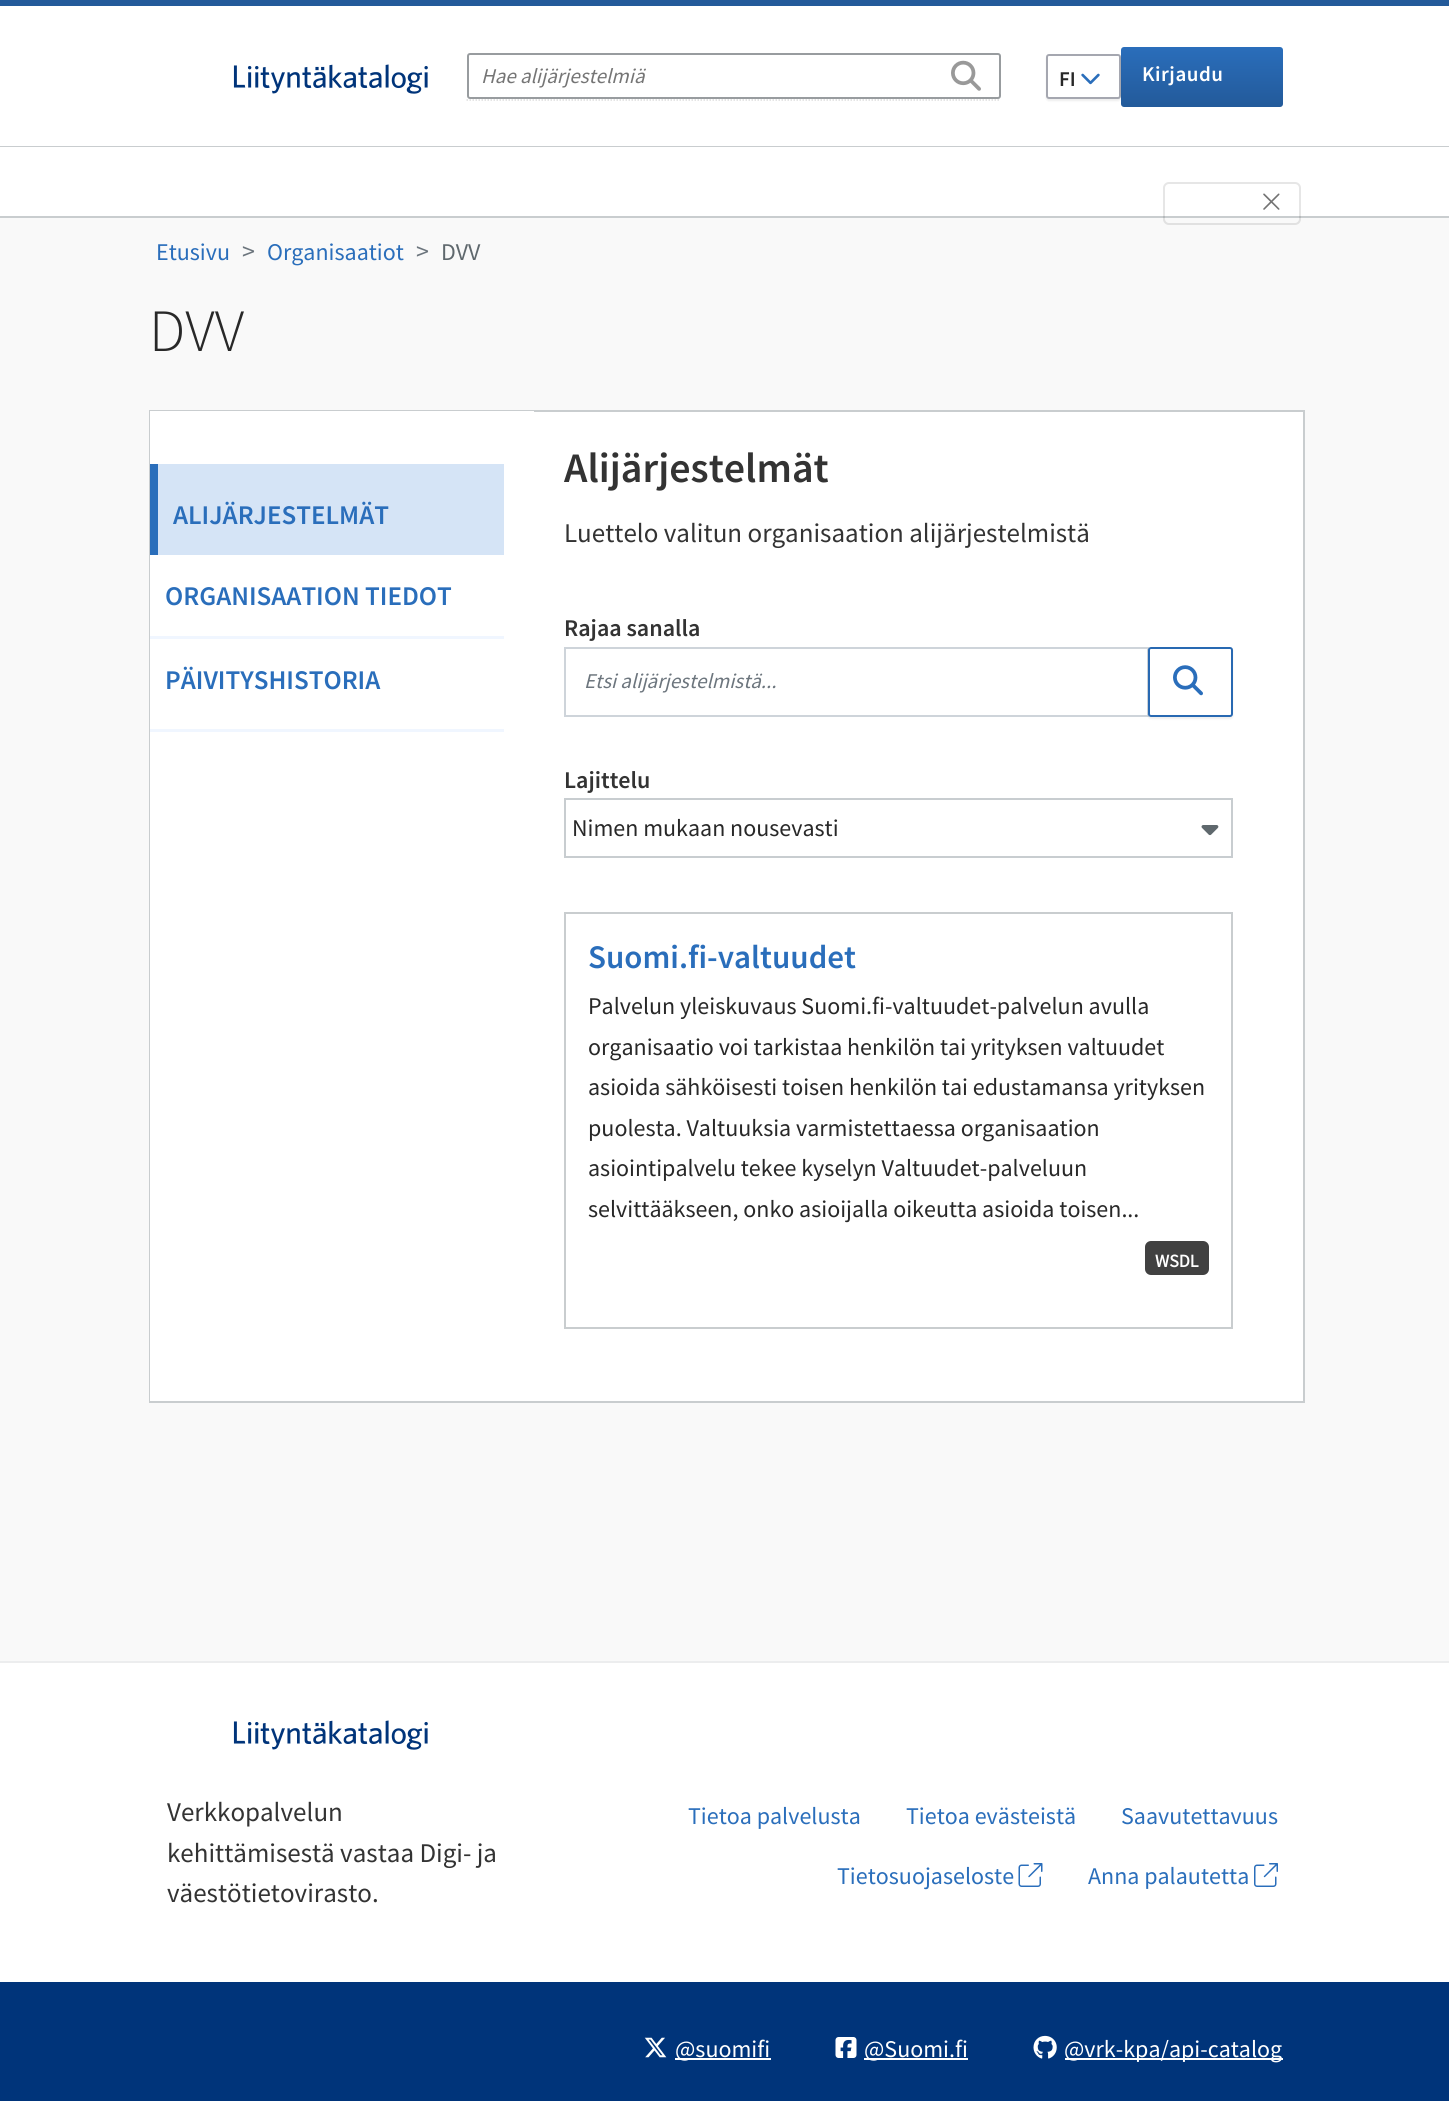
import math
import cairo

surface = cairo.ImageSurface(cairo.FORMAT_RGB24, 1449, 2101)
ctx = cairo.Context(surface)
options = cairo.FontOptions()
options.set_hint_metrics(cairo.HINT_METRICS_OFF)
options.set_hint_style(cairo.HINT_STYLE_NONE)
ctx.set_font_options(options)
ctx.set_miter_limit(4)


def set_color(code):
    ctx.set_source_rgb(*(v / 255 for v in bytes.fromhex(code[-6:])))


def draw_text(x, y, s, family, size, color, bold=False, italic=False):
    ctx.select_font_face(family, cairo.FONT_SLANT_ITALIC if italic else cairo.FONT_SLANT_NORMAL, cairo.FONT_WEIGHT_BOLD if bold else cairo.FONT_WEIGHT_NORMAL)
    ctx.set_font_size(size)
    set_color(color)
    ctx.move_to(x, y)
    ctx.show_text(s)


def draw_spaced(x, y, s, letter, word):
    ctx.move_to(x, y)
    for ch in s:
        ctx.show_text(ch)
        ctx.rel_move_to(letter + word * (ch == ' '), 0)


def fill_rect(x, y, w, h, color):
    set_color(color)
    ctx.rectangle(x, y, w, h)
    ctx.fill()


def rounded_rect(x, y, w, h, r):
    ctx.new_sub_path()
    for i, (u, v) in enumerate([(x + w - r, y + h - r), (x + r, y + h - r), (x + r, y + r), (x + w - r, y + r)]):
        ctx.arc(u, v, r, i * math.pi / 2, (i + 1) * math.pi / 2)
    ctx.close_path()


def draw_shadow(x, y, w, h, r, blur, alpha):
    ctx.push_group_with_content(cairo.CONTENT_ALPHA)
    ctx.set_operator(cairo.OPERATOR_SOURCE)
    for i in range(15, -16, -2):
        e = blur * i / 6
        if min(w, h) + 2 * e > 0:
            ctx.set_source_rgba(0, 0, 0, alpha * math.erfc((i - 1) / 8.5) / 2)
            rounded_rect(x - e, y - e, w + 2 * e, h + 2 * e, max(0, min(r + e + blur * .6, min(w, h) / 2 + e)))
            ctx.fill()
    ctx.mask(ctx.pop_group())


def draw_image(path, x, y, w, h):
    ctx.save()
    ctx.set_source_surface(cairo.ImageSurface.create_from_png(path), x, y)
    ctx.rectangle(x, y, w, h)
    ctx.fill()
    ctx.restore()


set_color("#f9f9f9")
ctx.paint()
fill_rect(0, 6, 1449, 140, "#ffffff")
fill_rect(0, 0, 1449, 6, "#235a9a")
fill_rect(0, 146, 1449, 1, "#c9cdcf")
draw_image("assets/img1.png", 233, 64, 195, 30)
ctx.new_path()
ctx.move_to(466.5, 100)
ctx.line_to(1000.5, 100)
set_color("#dddddd")
ctx.set_line_width(1.5)
ctx.set_dash([1.5, 1.5])
ctx.stroke()
rounded_rect(468, 54, 532, 44, 2)
set_color("#989c9f")
ctx.set_line_width(2)
ctx.set_dash([])
ctx.stroke()
draw_text(481, 83, "Hae alijärjestelmiä", "Source Sans Pro", 21, "#757575", italic=True)
draw_image("assets/img2.png", 951, 60, 30, 31)
gradient = cairo.LinearGradient(1202, 107, 1202, 47)
gradient.add_color_stop_rgba(0, 0.137, 0.353, 0.604, 1)
gradient.add_color_stop_rgba(1, 0.165, 0.431, 0.733, 1)
ctx.set_source(gradient)
rounded_rect(1121, 47, 162, 60, 3)
ctx.fill()
set_color("#000000")
draw_shadow(1046, 56, 75, 45, 3, 1, 0.07)
set_color("#ffffff")
rounded_rect(1047, 55, 73, 43, 2)
ctx.fill_preserve()
set_color("#a5a7b0")
ctx.stroke()
draw_text(1059, 86, "FI", "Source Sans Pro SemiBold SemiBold", 21, "#282828")
draw_image("assets/img3.png", 1081, 73, 19, 12)
set_color("#ffffff")
draw_spaced(1142, 81, "Kirjaudu", 0.5, 0)
fill_rect(0, 216, 1449, 2, "#c9cdcf")
fill_rect(0, 147, 1449, 69, "#ffffff")
rounded_rect(1164, 183, 136, 41, 5)
ctx.set_source_rgba(0, 0, 0, 0.1)
ctx.stroke()
draw_image("assets/img4.png", 1263, 193, 17, 17)
draw_text(156, 260, "Etusivu", "Source Sans Pro", 24, "#2a6ebb")
draw_text(242, 260, ">", "Source Sans Pro", 26, "#6c757d")
draw_text(267, 260, "Organisaatiot", "Source Sans Pro", 24, "#2a6ebb")
draw_text(416, 260, ">", "Source Sans Pro", 26, "#6c757d")
draw_text(441, 260, "DVV", "Source Sans Pro", 24, "#5f686d")
draw_text(149, 351, "DVV", "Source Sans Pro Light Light", 60, "#282828")
fill_rect(534, 412, 769, 989, "#ffffff")
ctx.rectangle(150, 411, 1154, 991)
set_color("#c9cdcf")
ctx.stroke()
fill_rect(150, 411, 384, 990, "#ffffff")
fill_rect(158, 464, 346, 91, "#d5e4f6")
fill_rect(150, 464, 8, 91, "#2a6ebb")
draw_text(173, 524, "ALIJÄRJESTELMÄT", "Source Sans Pro SemiBold SemiBold", 27, "#2a6ebb")
fill_rect(150, 636, 354, 3, "#f0f6ff")
draw_text(165, 605, "ORGANISAATION TIEDOT", "Source Sans Pro SemiBold SemiBold", 27, "#2a6ebb")
fill_rect(150, 729, 354, 3, "#f0f6ff")
draw_text(165, 689, "PÄIVITYSHISTORIA", "Source Sans Pro SemiBold SemiBold", 27, "#2a6ebb")
draw_text(564, 482, "Alijärjestelmät", "Source Sans Pro SemiBold SemiBold", 42, "#333333")
draw_text(564, 542, "Luettelo valitun organisaation alijärjestelmistä", "Source Sans Pro", 27, "#333333")
draw_text(564, 636, "Rajaa sanalla", "Source Sans Pro SemiBold SemiBold", 24, "#333333")
ctx.rectangle(565, 648, 583, 68)
set_color("#ced4da")
ctx.stroke()
draw_text(584, 688, "Etsi alijärjestelmistä...", "Source Sans Pro", 21, "#6c757d", italic=True)
set_color("#000000")
draw_shadow(1148, 648, 85, 71, 3, 1, 0.07)
set_color("#ffffff")
rounded_rect(1149, 648, 83, 68, 2)
ctx.fill_preserve()
set_color("#2869b2")
ctx.stroke()
draw_image("assets/img5.png", 1173, 665, 30, 31)
draw_text(564, 788, "Lajittelu", "Source Sans Pro SemiBold SemiBold", 24, "#333333")
ctx.rectangle(565, 799, 667, 58)
set_color("#c8cdd0")
ctx.stroke()
draw_text(572, 836, "Nimen mukaan nousevasti", "Source Sans Pro", 24, "#282828")
draw_image("assets/img6.png", 1201, 825, 18, 11)
ctx.rectangle(565, 913, 667, 415)
set_color("#c9cdcf")
ctx.stroke()
draw_text(588, 968, "Suomi.fi-valtuudet", "Source Sans Pro SemiBold SemiBold", 33, "#2a6ebb")
draw_text(588, 1014, "Palvelun yleiskuvaus Suomi.fi-valtuudet-palvelun avulla", "Source Sans Pro", 24, "#282828")
draw_text(588, 1055, "organisaatio voi tarkistaa henkilön tai yrityksen valtuudet", "Source Sans Pro", 24, "#282828")
draw_text(588, 1095, "asioida sähköisesti toisen henkilön tai edustamansa yrityksen", "Source Sans Pro", 24, "#282828")
draw_text(588, 1136, "puolesta. Valtuuksia varmistettaessa organisaation", "Source Sans Pro", 24, "#282828")
draw_text(588, 1176, "asiointipalvelu tekee kyselyn Valtuudet-palveluun", "Source Sans Pro", 24, "#282828")
draw_text(588, 1217, "selvittääkseen, onko asioijalla oikeutta asioida toisen...", "Source Sans Pro", 24, "#282828")
set_color("#414141")
rounded_rect(1145, 1241, 64, 34, 6)
ctx.fill()
draw_text(1155, 1267, "WSDL", "Source Sans Pro", 18, "#ffffff", bold=True)
fill_rect(0, 1663, 1449, 319, "#ffffff")
fill_rect(0, 1661, 1449, 2, "#ecedee")
draw_image("assets/img1.png", 233, 1720, 195, 30)
draw_text(167, 1821, "Verkkopalvelun", "Source Sans Pro", 27, "#333333")
draw_text(167, 1862, "kehittämisestä vastaa Digi- ja", "Source Sans Pro", 27, "#333333")
draw_text(167, 1902, "väestötietovirasto.", "Source Sans Pro", 27, "#333333")
draw_text(688, 1824, "Tietoa palvelusta", "Source Sans Pro", 24, "#2a6ebb")
draw_text(906, 1824, "Tietoa evästeistä", "Source Sans Pro", 24, "#2a6ebb")
draw_text(1121, 1824, "Saavutettavuus", "Source Sans Pro", 24, "#2a6ebb")
draw_text(837, 1884, "Tietosuojaseloste", "Source Sans Pro", 24, "#2a6ebb")
draw_image("assets/img7.png", 1018, 1863, 25, 24)
draw_text(1088, 1884, "Anna palautetta", "Source Sans Pro", 24, "#2a6ebb")
draw_image("assets/img8.png", 1254, 1863, 24, 24)
fill_rect(0, 1982, 1449, 119, "#00347a")
draw_image("assets/img9.png", 644, 2037, 23, 21)
fill_rect(675, 2058, 96, 2, "#ffffff")
draw_text(675, 2057, "@suomifi", "Source Sans Pro", 24, "#ffffff")
draw_image("assets/img10.png", 835, 2037, 22, 21)
fill_rect(864, 2058, 104, 2, "#ffffff")
draw_text(864, 2057, "@Suomi.fi", "Source Sans Pro", 24, "#ffffff")
draw_image("assets/img11.png", 1033, 2035, 24, 24)
fill_rect(1065, 2058, 218, 2, "#ffffff")
draw_text(1064, 2057, "@vrk-kpa/api-catalog", "Source Sans Pro", 24, "#ffffff")
surface.write_to_png("output.png")
